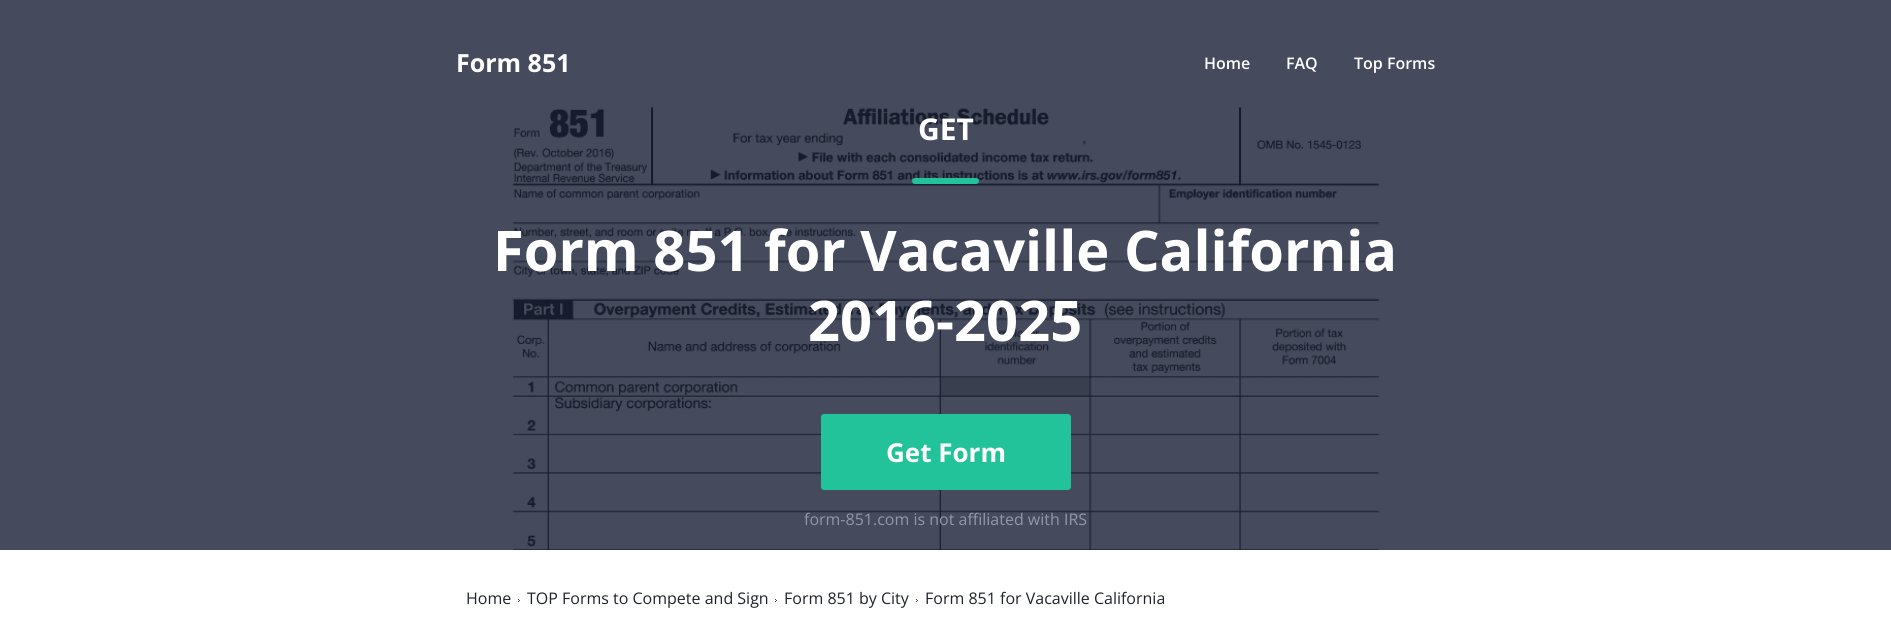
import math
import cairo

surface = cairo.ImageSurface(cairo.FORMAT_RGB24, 1891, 622)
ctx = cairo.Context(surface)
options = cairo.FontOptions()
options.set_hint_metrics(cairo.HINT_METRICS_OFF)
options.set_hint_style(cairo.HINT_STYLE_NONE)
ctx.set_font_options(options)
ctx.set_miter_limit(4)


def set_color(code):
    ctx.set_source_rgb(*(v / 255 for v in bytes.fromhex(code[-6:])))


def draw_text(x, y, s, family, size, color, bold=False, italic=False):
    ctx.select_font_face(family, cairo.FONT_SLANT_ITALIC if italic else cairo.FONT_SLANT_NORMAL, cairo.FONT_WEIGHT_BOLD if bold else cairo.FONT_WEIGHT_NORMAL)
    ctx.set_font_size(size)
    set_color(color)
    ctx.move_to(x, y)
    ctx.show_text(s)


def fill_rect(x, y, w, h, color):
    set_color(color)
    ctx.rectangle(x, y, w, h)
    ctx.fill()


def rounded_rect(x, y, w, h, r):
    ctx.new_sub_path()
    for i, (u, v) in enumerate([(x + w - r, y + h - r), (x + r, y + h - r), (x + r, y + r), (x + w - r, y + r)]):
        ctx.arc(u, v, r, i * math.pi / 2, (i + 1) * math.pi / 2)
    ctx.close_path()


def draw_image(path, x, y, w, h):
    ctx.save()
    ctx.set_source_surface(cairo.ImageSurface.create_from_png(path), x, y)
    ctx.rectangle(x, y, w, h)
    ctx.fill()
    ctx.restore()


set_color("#ffffff")
ctx.paint()
fill_rect(0, 0, 1891, 550, "#454b5c")
draw_text(456, 72, "Form 851", "Open Sans", 25, "#ffffff", bold=True)
draw_text(1204, 69, "Home", "Open Sans SemiBold", 16, "#ffffff")
draw_text(1286, 69, "FAQ", "Open Sans SemiBold", 16, "#ffffff")
draw_text(1354, 69, "Top Forms", "Open Sans SemiBold", 16, "#ffffff")
draw_image("assets/img1.png", 512, 106, 868, 444)
draw_text(918, 140, "GET", "Open Sans", 30, "#ffffff", bold=True)
set_color("#22c29a")
rounded_rect(912, 178, 67, 6, 3)
ctx.fill()
draw_text(493, 271, "Form 851 for Vacaville California", "Open Sans", 56, "#ffffff", bold=True)
draw_text(808, 341, "2016-2025", "Open Sans", 56, "#ffffff", bold=True)
set_color("#22c29a")
rounded_rect(821, 414, 250, 76, 3)
ctx.fill()
draw_text(886, 462, "Get Form", "Open Sans", 26, "#ffffff", bold=True)
draw_text(804, 525, "form-851.com is not affiliated with IRS", "Open Sans", 16, "#9197a9")
draw_text(466, 604, "Home", "Open Sans", 16, "#20232b")
draw_image("assets/img2.png", 518, 599, 2, 3)
draw_text(527, 604, "TOP Forms to Compete and Sign", "Open Sans", 16, "#20232b")
draw_image("assets/img2.png", 775, 599, 2, 3)
draw_text(784, 604, "Form 851 by City", "Open Sans", 16, "#20232b")
draw_image("assets/img2.png", 916, 599, 2, 3)
draw_text(925, 604, "Form 851 for Vacaville California", "Open Sans", 16, "#20232b")
surface.write_to_png("output.png")
